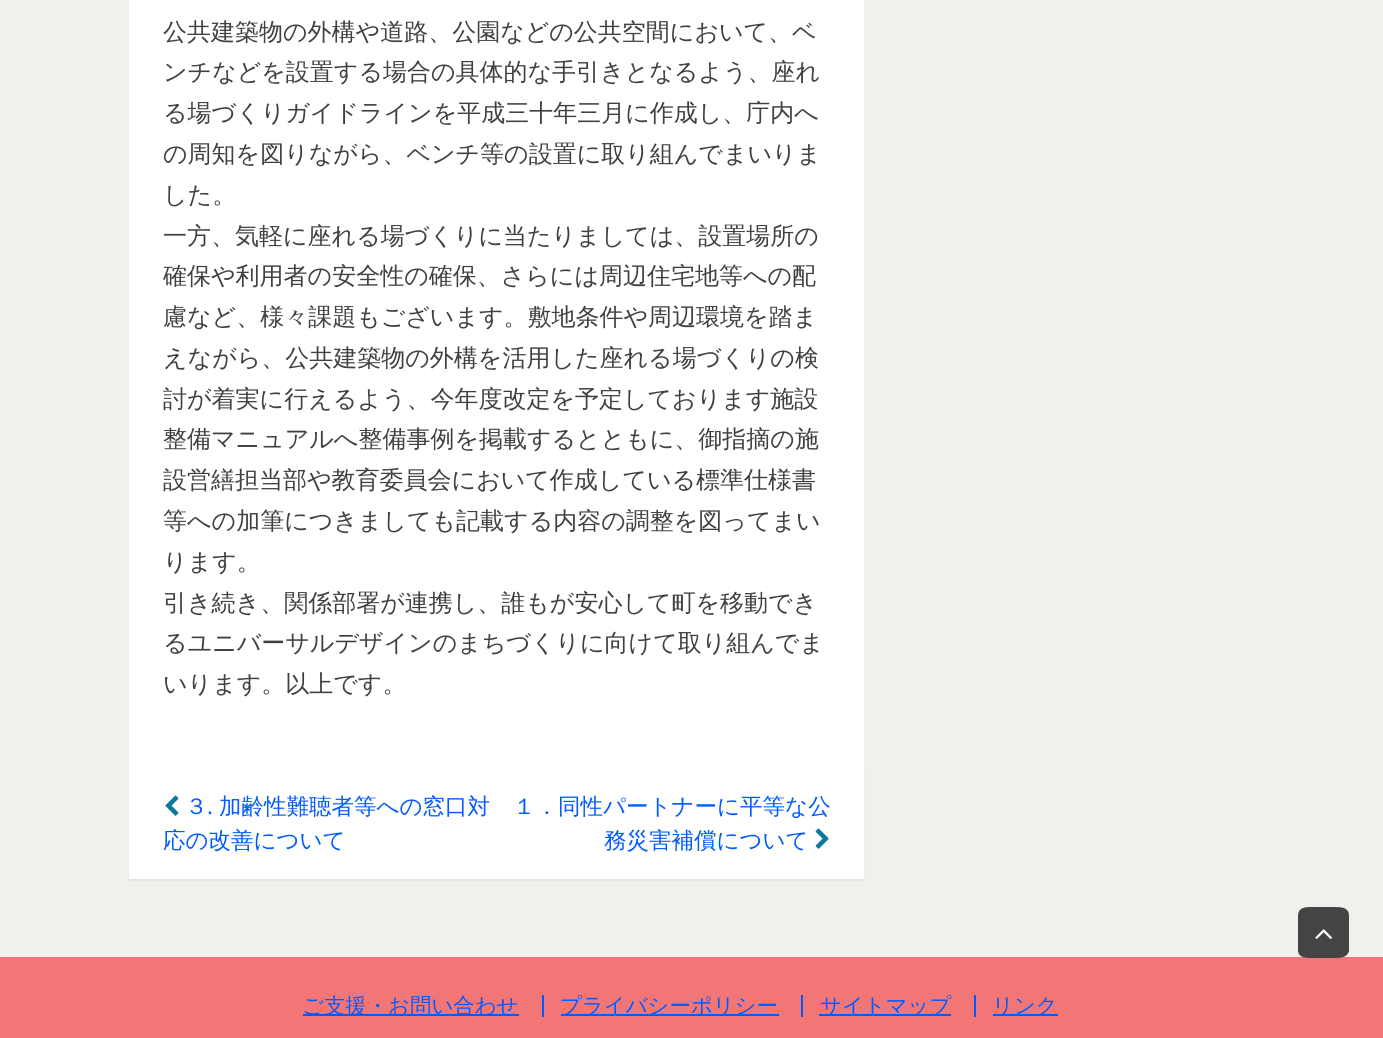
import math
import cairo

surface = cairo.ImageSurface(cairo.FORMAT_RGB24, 1383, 1038)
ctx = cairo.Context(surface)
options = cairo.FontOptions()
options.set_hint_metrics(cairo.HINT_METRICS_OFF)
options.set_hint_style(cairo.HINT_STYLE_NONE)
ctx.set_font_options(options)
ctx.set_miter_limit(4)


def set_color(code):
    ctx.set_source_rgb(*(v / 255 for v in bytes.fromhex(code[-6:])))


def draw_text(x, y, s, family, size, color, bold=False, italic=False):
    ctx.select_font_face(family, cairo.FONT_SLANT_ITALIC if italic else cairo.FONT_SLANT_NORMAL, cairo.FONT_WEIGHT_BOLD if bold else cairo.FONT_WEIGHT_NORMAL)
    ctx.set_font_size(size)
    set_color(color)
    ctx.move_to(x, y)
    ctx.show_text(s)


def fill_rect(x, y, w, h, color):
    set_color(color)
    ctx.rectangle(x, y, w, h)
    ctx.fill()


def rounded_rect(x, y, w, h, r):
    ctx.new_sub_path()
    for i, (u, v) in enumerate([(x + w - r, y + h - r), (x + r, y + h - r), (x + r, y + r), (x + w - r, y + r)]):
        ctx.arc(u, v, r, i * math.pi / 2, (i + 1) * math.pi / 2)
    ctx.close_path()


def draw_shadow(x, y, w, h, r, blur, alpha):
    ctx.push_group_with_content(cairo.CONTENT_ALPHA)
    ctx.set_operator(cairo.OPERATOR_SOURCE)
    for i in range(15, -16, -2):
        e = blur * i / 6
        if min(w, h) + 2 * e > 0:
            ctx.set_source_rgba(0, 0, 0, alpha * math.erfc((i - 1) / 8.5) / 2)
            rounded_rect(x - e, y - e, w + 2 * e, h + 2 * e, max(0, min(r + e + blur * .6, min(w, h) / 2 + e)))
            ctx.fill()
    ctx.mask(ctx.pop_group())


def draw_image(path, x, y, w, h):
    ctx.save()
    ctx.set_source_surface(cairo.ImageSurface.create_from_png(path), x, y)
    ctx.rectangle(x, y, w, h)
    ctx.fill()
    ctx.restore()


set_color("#f1f0ed")
ctx.paint()
fill_rect(129, 0, 735, 767, "#ffffff")
draw_text(163, 40, "公共建築物の外構や道路、公園などの公共空間において、ベ", "WenQuanYi Zen Hei Medium", 24, "#404040")
draw_text(163, 80, "ンチなどを設置する場合の具体的な手引きとなるよう、座れ", "WenQuanYi Zen Hei Medium", 24, "#404040")
draw_text(163, 121, "る場づくりガイドラインを平成三十年三月に作成し、庁内へ", "WenQuanYi Zen Hei Medium", 24, "#404040")
draw_text(163, 162, "の周知を図りながら、ベンチ等の設置に取り組んでまいりま", "WenQuanYi Zen Hei Medium", 24, "#404040")
draw_text(163, 203, "した。", "WenQuanYi Zen Hei Medium", 24, "#404040")
draw_text(163, 244, "一方、気軽に座れる場づくりに当たりましては、設置場所の", "WenQuanYi Zen Hei Medium", 24, "#404040")
draw_text(163, 284, "確保や利用者の安全性の確保、さらには周辺住宅地等への配", "WenQuanYi Zen Hei Medium", 24, "#404040")
draw_text(163, 325, "慮など、様々課題もございます。敷地条件や周辺環境を踏ま", "WenQuanYi Zen Hei Medium", 24, "#404040")
draw_text(163, 366, "えながら、公共建築物の外構を活用した座れる場づくりの検", "WenQuanYi Zen Hei Medium", 24, "#404040")
draw_text(163, 407, "討が着実に行えるよう、今年度改定を予定しております施設", "WenQuanYi Zen Hei Medium", 24, "#404040")
draw_text(163, 447, "整備マニュアルへ整備事例を掲載するとともに、御指摘の施", "WenQuanYi Zen Hei Medium", 24, "#404040")
draw_text(163, 488, "設営繕担当部や教育委員会において作成している標準仕様書", "WenQuanYi Zen Hei Medium", 24, "#404040")
draw_text(163, 529, "等への加筆につきましても記載する内容の調整を図ってまい", "WenQuanYi Zen Hei Medium", 24, "#404040")
draw_text(163, 570, "ります。", "WenQuanYi Zen Hei Medium", 24, "#404040")
draw_text(163, 611, "引き続き、関係部署が連携し、誰もが安心して町を移動でき", "WenQuanYi Zen Hei Medium", 24, "#404040")
draw_text(163, 651, "るユニバーサルデザインのまちづくりに向けて取り組んでま", "WenQuanYi Zen Hei Medium", 24, "#404040")
draw_text(163, 692, "いります。以上です。", "WenQuanYi Zen Hei Medium", 24, "#404040")
set_color("#000000")
draw_shadow(129, 768, 735, 113, 0, 1, 0.06)
fill_rect(129, 767, 735, 112, "#ffffff")
draw_image("assets/img1.png", 165, 795, 14, 21)
draw_text(185, 814, "３", "WenQuanYi Zen Hei Medium", 22.5, "#005aff")
draw_text(207, 814, ".", "Open Sans", 22.5, "#005aff")
draw_text(219, 814, "加齢性難聴者等への窓口対", "WenQuanYi Zen Hei Medium", 22.5, "#005aff")
draw_text(163, 848, "応の改善について", "WenQuanYi Zen Hei Medium", 22.5, "#005aff")
draw_text(513, 814, "１．同性パートナーに平等な公", "WenQuanYi Zen Hei Medium", 22.5, "#005aff")
draw_text(604, 848, "務災害補償について", "WenQuanYi Zen Hei Medium", 22.5, "#005aff")
draw_image("assets/img2.png", 815, 828, 14, 21)
fill_rect(0, 957, 1383, 81, "#f37677")
fill_rect(542, 995, 2, 22, "#005aff")
fill_rect(303, 1014, 216, 2, "#005aff")
draw_text(302, 1013, "ご支援・お問い合わせ", "WenQuanYi Zen Hei Medium", 21.4, "#005aff")
fill_rect(801, 995, 2, 22, "#005aff")
fill_rect(561, 1014, 218, 2, "#005aff")
draw_text(560, 1013, "プライバシーポリシー", "WenQuanYi Zen Hei Medium", 21.4, "#005aff")
fill_rect(974, 995, 2, 22, "#005aff")
fill_rect(819, 1014, 132, 2, "#005aff")
draw_text(820, 1013, "サイトマップ", "WenQuanYi Zen Hei Medium", 21.4, "#005aff")
fill_rect(993, 1014, 65, 2, "#005aff")
draw_text(992, 1013, "リンク", "WenQuanYi Zen Hei Medium", 21.4, "#005aff")
set_color("#444444")
ctx.new_path()
ctx.move_to(1349, 916)
ctx.line_to(1349, 951)
ctx.curve_to(1347, 958, 1340, 958, 1334, 958)
ctx.line_to(1312, 958)
ctx.curve_to(1306, 958, 1299, 958, 1298, 951)
ctx.line_to(1298, 916)
ctx.curve_to(1298, 907, 1306, 907, 1312, 907)
ctx.line_to(1334, 907)
ctx.curve_to(1341, 907, 1349, 907, 1349, 916)
ctx.close_path()
ctx.fill()
draw_image("assets/img3.png", 1315, 929, 17, 10)
surface.write_to_png("output.png")
